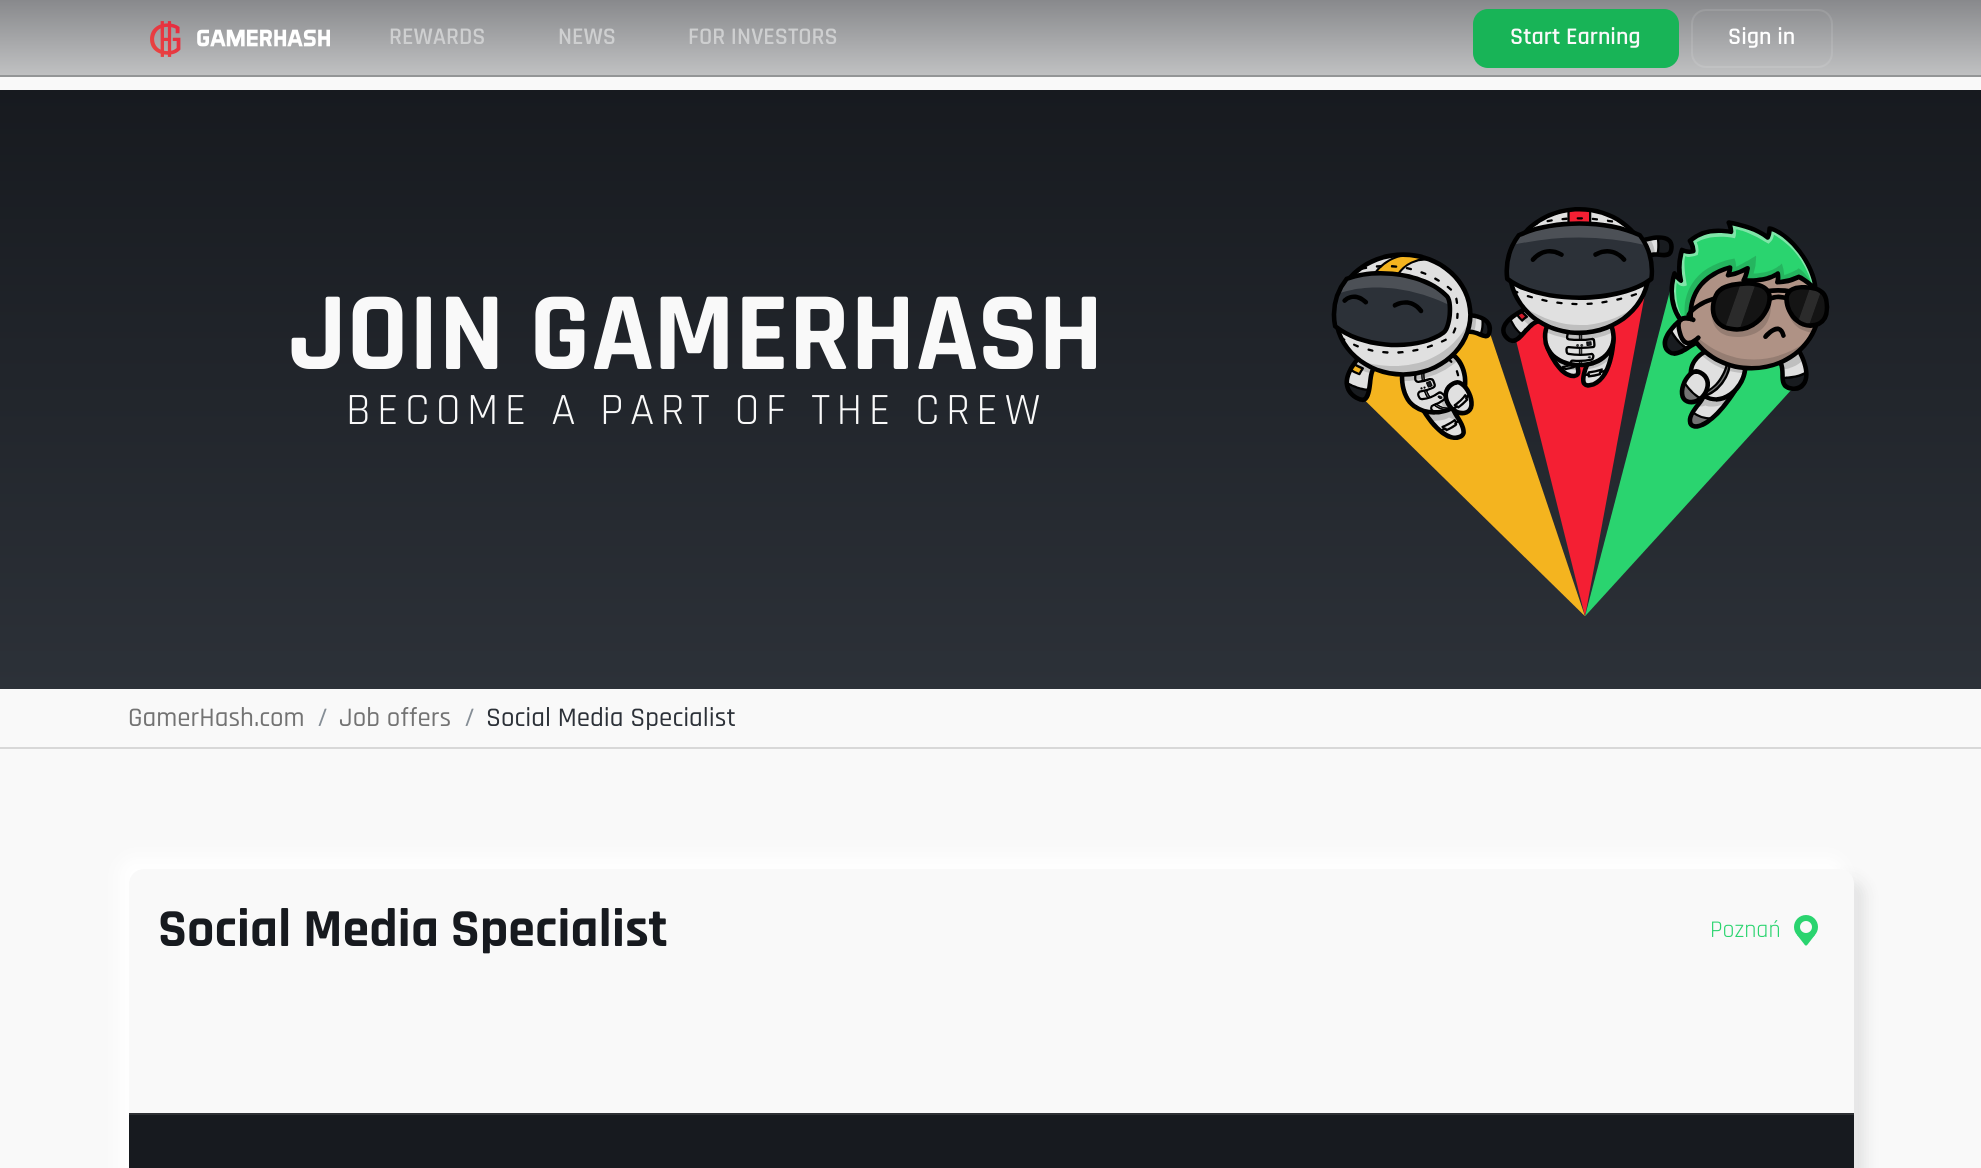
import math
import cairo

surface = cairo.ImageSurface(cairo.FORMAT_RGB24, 1981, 1168)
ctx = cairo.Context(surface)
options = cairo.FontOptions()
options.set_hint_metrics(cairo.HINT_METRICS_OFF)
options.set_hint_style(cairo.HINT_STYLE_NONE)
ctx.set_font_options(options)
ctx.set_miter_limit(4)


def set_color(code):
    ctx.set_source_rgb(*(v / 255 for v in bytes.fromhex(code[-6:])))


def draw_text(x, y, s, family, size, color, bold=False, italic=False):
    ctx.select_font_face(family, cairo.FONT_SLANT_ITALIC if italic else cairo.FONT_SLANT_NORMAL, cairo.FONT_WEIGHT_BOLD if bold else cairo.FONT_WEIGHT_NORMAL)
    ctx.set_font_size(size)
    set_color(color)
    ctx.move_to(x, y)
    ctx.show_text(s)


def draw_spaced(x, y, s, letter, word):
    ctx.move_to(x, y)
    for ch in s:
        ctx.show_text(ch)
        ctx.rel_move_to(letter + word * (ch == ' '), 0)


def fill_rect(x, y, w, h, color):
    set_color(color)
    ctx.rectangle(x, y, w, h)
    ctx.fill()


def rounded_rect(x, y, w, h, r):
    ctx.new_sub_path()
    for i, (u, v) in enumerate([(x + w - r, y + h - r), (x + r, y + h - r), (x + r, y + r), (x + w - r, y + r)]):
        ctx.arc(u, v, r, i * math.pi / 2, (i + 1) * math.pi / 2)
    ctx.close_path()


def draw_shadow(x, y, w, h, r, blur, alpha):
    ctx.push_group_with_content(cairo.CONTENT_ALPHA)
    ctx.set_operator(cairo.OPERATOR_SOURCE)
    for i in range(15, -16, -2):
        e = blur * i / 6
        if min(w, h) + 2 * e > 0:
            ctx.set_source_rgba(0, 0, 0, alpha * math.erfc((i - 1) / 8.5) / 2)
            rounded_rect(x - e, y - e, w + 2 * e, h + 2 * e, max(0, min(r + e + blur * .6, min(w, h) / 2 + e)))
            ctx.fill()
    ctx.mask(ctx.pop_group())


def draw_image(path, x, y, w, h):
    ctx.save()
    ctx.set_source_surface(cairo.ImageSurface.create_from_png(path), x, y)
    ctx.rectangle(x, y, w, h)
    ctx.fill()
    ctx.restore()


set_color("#f9f9f9")
ctx.paint()
gradient = cairo.LinearGradient(991, 0, 991, 75)
gradient.add_color_stop_rgba(0, 0.533, 0.537, 0.549, 1)
gradient.add_color_stop_rgba(1, 0.753, 0.757, 0.761, 1)
ctx.set_source(gradient)
ctx.rectangle(0, 0, 1981, 75)
ctx.fill()
fill_rect(0, 75, 1981, 2, "#949697")
draw_image("assets/img1.png", 150, 21, 180, 36)
draw_text(389, 44, "REWARDS", "Rajdhani SemiBold", 24, "#cecfd0")
draw_text(558, 44, "NEWS", "Rajdhani SemiBold", 24, "#cecfd0")
draw_text(688, 44, "FOR INVESTORS", "Rajdhani SemiBold", 24, "#cecfd0")
set_color("#18b457")
rounded_rect(1473, 9, 206, 59, 15)
ctx.fill()
draw_text(1510, 44, "Start Earning", "Rajdhani SemiBold", 24, "#f9f9f9")
rounded_rect(1692, 10, 140, 57, 14)
ctx.set_source_rgba(0.98, 0.98, 0.98, 0.1)
ctx.stroke()
draw_text(1728, 44, "Sign in", "Rajdhani SemiBold", 24, "#ffffff")
gradient = cairo.LinearGradient(991, 90, 991, 689)
gradient.add_color_stop_rgba(0, 0.09, 0.102, 0.122, 1)
gradient.add_color_stop_rgba(1, 0.173, 0.192, 0.22, 1)
ctx.set_source(gradient)
ctx.rectangle(0, 90, 1981, 599)
ctx.fill()
draw_text(288, 369, "JOIN GAMERHASH", "Rajdhani", 112.5, "#f9f9f9", bold=True)
ctx.select_font_face("Rajdhani")
ctx.set_font_size(45)
draw_spaced(346, 424, "BECOME A PART OF THE CREW", 6.4, 0)
draw_image("assets/img2.png", 1331, 207, 499, 409)
fill_rect(0, 747, 1981, 2, "#d8d8d8")
draw_text(128, 726, "GamerHash.com", "Rajdhani Medium", 27, "#737373")
draw_text(317, 726, "/", "Rajdhani Medium", 27, "#868e96")
draw_text(339, 726, "Job offers", "Rajdhani Medium", 27, "#737373")
draw_text(464, 726, "/", "Rajdhani Medium", 27, "#868e96")
draw_text(486, 726, "Social Media Specialist", "Rajdhani Medium", 27, "#2c3138")
set_color("#171a1f")
draw_shadow(140, 879, 1725, 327, 15, 7.5, 0.1)
set_color("#ffffff")
draw_shadow(119, 858, 1725, 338, 15, 7.5, 1)
set_color("#f9f9f9")
rounded_rect(129, 869, 1725, 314, 15)
ctx.fill()
draw_text(158, 946, "Social Media Specialist", "Rajdhani", 54, "#171a1f", bold=True)
draw_text(1710, 937, "Poznań", "Rajdhani", 24, "#2ad46f")
draw_image("assets/img3.png", 1794, 915, 24, 31)
fill_rect(129, 1115, 1725, 53, "#171a1f")
fill_rect(129, 1113, 1725, 2, "#2e3034")
surface.write_to_png("output.png")
